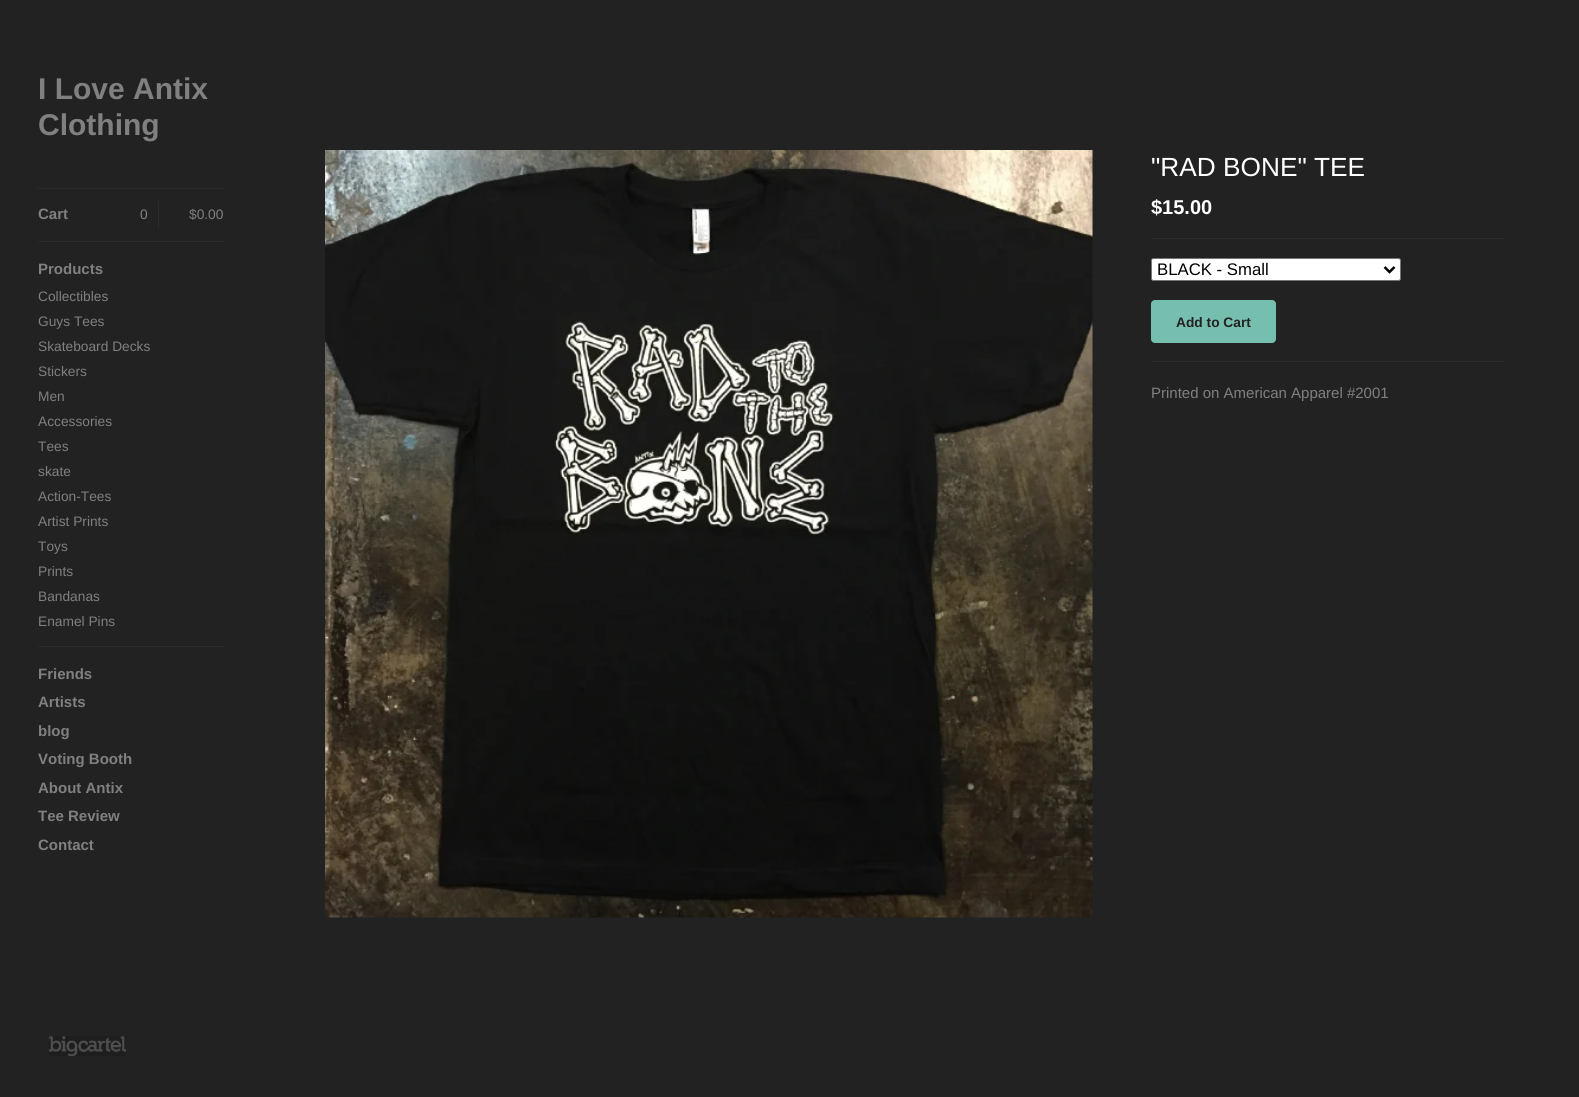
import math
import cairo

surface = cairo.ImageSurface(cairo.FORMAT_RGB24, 1579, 1097)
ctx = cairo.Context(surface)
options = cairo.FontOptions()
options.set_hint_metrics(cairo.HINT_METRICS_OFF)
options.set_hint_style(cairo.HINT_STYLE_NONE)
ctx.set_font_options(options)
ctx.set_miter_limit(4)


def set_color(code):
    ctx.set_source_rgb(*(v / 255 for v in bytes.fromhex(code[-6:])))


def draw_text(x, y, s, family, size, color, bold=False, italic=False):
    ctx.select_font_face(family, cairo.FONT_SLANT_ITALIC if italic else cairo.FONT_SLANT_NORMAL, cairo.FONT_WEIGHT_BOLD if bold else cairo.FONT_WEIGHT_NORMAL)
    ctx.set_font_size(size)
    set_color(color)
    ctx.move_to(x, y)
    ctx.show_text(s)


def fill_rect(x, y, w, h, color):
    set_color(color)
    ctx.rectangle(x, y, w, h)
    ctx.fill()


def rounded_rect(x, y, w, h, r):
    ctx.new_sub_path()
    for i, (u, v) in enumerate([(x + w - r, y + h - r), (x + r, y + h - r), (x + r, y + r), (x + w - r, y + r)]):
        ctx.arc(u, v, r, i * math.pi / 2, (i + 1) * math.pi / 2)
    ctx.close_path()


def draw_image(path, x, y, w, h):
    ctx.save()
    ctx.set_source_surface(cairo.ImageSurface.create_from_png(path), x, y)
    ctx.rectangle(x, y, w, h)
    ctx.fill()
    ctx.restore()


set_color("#222222")
ctx.paint()
draw_text(38, 99, "I Love Antix", "Liberation Sans", 30, "#808080", bold=True)
draw_text(38, 135, "Clothing", "Liberation Sans", 30, "#808080", bold=True)
fill_rect(38, 188, 186, 1, "#2b2b2b")
draw_text(38, 219, "Cart", "Liberation Sans", 15, "#808080", bold=True)
draw_text(140, 219, "0", "Liberation Sans", 13.75, "#808080")
fill_rect(158, 201, 1, 28, "#2b2b2b")
draw_text(189, 219, "$0.00", "Liberation Sans", 13.75, "#808080")
fill_rect(38, 241, 186, 1, "#2b2b2b")
draw_text(38, 274, "Products", "Liberation Sans", 15, "#808080", bold=True)
draw_text(38, 301, "Collectibles", "Liberation Sans", 13.75, "#808080")
draw_text(38, 326, "Guys Tees", "Liberation Sans", 13.75, "#808080")
draw_text(38, 351, "Skateboard Decks", "Liberation Sans", 13.75, "#808080")
draw_text(38, 376, "Stickers", "Liberation Sans", 13.75, "#808080")
draw_text(38, 401, "Men", "Liberation Sans", 13.75, "#808080")
draw_text(38, 426, "Accessories", "Liberation Sans", 13.75, "#808080")
draw_text(38, 451, "Tees", "Liberation Sans", 13.75, "#808080")
draw_text(38, 476, "skate", "Liberation Sans", 13.75, "#808080")
draw_text(38, 501, "Action-Tees", "Liberation Sans", 13.75, "#808080")
draw_text(38, 526, "Artist Prints", "Liberation Sans", 13.75, "#808080")
draw_text(38, 551, "Toys", "Liberation Sans", 13.75, "#808080")
draw_text(38, 576, "Prints", "Liberation Sans", 13.75, "#808080")
draw_text(38, 601, "Bandanas", "Liberation Sans", 13.75, "#808080")
draw_text(38, 626, "Enamel Pins", "Liberation Sans", 13.75, "#808080")
fill_rect(38, 646, 186, 1, "#2b2b2b")
draw_text(38, 679, "Friends", "Liberation Sans", 15, "#808080", bold=True)
draw_text(38, 707, "Artists", "Liberation Sans", 15, "#808080", bold=True)
draw_text(38, 736, "blog", "Liberation Sans", 15, "#808080", bold=True)
draw_text(38, 764, "Voting Booth", "Liberation Sans", 15, "#808080", bold=True)
draw_text(38, 793, "About Antix", "Liberation Sans", 15, "#808080", bold=True)
draw_text(38, 821, "Tee Review", "Liberation Sans", 15, "#808080", bold=True)
draw_text(38, 850, "Contact", "Liberation Sans", 15, "#808080", bold=True)
draw_image("assets/img1.png", 49, 1036, 77, 20)
draw_image("assets/img2.png", 325, 150, 768, 768)
draw_text(1151, 176, "\"RAD BONE\" TEE", "Liberation Sans", 26.25, "#ffffff")
draw_text(1151, 214, "$15.00", "Liberation Sans", 20, "#ffffff", bold=True)
fill_rect(1151, 238, 354, 1, "#2b2b2b")
set_color("#ffffff")
rounded_rect(1151.5, 258.5, 249, 22, 2)
ctx.fill_preserve()
set_color("#767676")
ctx.set_line_width(1)
ctx.stroke()
ctx.new_path()
ctx.move_to(1384.5, 267)
ctx.line_to(1389.5, 272)
ctx.line_to(1394.5, 267)
set_color("#000000")
ctx.set_line_width(2.5)
ctx.stroke()
draw_text(1157, 275, "BLACK - Small", "Liberation Sans", 16.75, "#000000")
set_color("#76bfaf")
rounded_rect(1151, 300, 125, 43, 4)
ctx.fill()
draw_text(1176, 327, "Add to Cart", "Liberation Sans", 13.75, "#222222", bold=True)
fill_rect(1151, 361, 354, 1, "#2b2b2b")
draw_text(1151, 398, "Printed on American Apparel #2001", "Liberation Sans", 15, "#808080")
surface.write_to_png("output.png")
